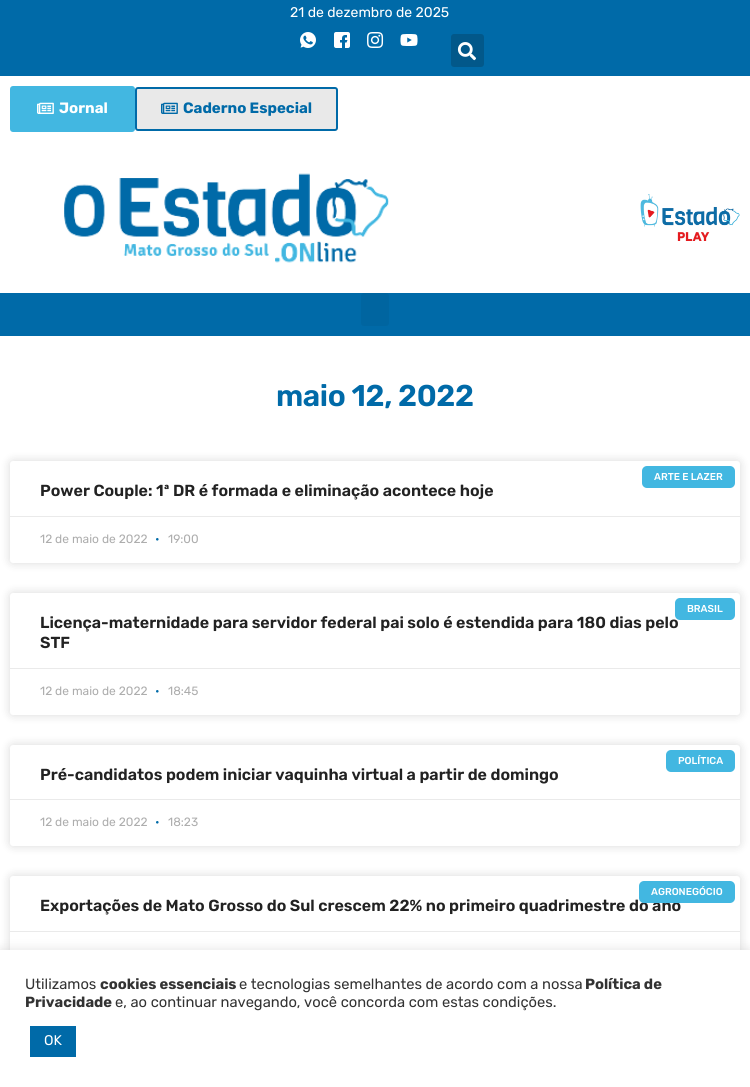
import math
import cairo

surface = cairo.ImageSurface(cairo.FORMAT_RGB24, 750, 1087)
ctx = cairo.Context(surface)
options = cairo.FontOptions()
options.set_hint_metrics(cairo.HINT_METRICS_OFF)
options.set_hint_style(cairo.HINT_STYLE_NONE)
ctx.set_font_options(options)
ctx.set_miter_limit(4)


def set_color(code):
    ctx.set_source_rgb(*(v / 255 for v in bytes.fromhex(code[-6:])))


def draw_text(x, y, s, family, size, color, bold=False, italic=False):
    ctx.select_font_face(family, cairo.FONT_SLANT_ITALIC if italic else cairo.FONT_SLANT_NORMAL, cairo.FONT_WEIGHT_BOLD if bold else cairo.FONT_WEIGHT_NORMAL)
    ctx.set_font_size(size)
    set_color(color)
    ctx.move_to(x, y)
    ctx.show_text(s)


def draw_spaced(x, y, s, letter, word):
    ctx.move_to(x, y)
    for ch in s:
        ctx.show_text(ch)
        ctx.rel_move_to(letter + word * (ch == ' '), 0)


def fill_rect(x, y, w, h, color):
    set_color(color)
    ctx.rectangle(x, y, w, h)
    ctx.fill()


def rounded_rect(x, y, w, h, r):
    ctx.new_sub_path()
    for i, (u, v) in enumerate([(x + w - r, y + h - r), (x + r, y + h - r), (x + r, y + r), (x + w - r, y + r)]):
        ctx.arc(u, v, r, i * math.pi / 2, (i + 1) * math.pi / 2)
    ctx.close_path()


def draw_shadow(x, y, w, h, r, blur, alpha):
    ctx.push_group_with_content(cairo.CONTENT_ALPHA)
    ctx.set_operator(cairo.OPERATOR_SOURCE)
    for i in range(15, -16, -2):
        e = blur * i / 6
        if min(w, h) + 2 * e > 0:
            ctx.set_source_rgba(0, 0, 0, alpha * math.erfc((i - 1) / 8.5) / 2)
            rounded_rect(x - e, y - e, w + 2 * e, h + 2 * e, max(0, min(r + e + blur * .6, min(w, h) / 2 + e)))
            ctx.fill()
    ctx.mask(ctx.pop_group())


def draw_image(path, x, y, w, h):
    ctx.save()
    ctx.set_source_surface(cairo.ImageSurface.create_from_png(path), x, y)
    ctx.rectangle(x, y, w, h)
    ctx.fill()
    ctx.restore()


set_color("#ffffff")
ctx.paint()
fill_rect(0, 0, 750, 76, "#006aa8")
draw_text(290, 17, "21 de dezembro de 2025", "Rubik", 14, "#ffffff")
draw_image("assets/img1.png", 300, 32, 16, 16)
draw_image("assets/img2.png", 334, 32, 16, 16)
draw_image("assets/img3.png", 367, 32, 17, 16)
draw_image("assets/img4.png", 400, 34, 18, 12)
set_color("#02588a")
rounded_rect(451, 34, 33, 33, 3)
ctx.fill()
draw_image("assets/img5.png", 457, 42, 19, 19)
set_color("#42b7e1")
rounded_rect(11.5, 87.5, 122, 43, 1.5)
ctx.fill_preserve()
ctx.set_line_width(3)
ctx.stroke()
draw_image("assets/img6.png", 37, 102, 17, 12)
draw_text(59, 113, "Jornal", "Rubik", 15, "#ffffff", bold=True)
set_color("#e9e9e9")
rounded_rect(136, 88, 201, 42, 2)
ctx.fill_preserve()
set_color("#006aa8")
ctx.set_line_width(2)
ctx.stroke()
draw_image("assets/img7.png", 161, 102, 17, 12)
draw_text(183, 113, "Caderno Especial", "Rubik", 15, "#006aa8", bold=True)
draw_image("assets/img8.png", 64, 173, 325, 90)
draw_image("assets/img9.png", 640, 194, 100, 47)
fill_rect(0, 293, 750, 43, "#006aa8")
set_color("#0065a0")
rounded_rect(361, 293, 28, 33, 3)
ctx.fill()
ctx.select_font_face("Rubik SemiBold")
ctx.set_font_size(30)
set_color("#006aa8")
draw_spaced(276, 406, "maio 12, 2022", -0.4, 0)
set_color("#000000")
draw_shadow(10, 461, 730, 102, 3, 5, 0.15)
set_color("#ffffff")
rounded_rect(10, 461, 730, 102, 3)
ctx.fill()
set_color("#42b7e1")
rounded_rect(642, 466, 93, 22, 5)
ctx.fill()
draw_text(654, 480, "ARTE E LAZER", "Rubik Medium", 10, "#ffffff")
draw_text(40, 496, "Power Couple: 1ª DR é formada e eliminação acontece hoje", "Rubik SemiBold", 16, "#222222")
fill_rect(10, 516, 730, 1, "#eaeaea")
draw_text(40, 543, "12 de maio de 2022", "Rubik", 12, "#adadad")
draw_text(155, 543, "•", "Rubik", 12, "#006aa8")
draw_text(168, 543, "19:00", "Rubik", 12, "#adadad")
set_color("#000000")
draw_shadow(10, 593, 730, 122, 3, 5, 0.15)
set_color("#ffffff")
rounded_rect(10, 593, 730, 122, 3)
ctx.fill()
draw_text(40, 628, "Licença-maternidade para servidor federal pai solo é estendida para 180 dias pelo", "Rubik SemiBold", 16, "#222222")
set_color("#42b7e1")
rounded_rect(675, 598, 60, 22, 5)
ctx.fill()
draw_text(687, 612, "BRASIL", "Rubik Medium", 10, "#ffffff")
draw_text(40, 648, "STF", "Rubik SemiBold", 16, "#222222")
fill_rect(10, 668, 730, 1, "#eaeaea")
draw_text(40, 695, "12 de maio de 2022", "Rubik", 12, "#adadad")
draw_text(155, 695, "•", "Rubik", 12, "#006aa8")
draw_text(168, 695, "18:45", "Rubik", 12, "#adadad")
set_color("#000000")
draw_shadow(10, 745, 730, 101, 3, 5, 0.15)
set_color("#ffffff")
rounded_rect(10, 745, 730, 101, 3)
ctx.fill()
set_color("#42b7e1")
rounded_rect(666, 750, 69, 22, 5)
ctx.fill()
draw_text(678, 764, "POLÍTICA", "Rubik Medium", 10, "#ffffff")
draw_text(40, 780, "Pré-candidatos podem iniciar vaquinha virtual a partir de domingo", "Rubik SemiBold", 16, "#222222")
fill_rect(10, 799, 730, 1, "#eaeaea")
draw_text(40, 826, "12 de maio de 2022", "Rubik", 12, "#adadad")
draw_text(155, 826, "•", "Rubik", 12, "#006aa8")
draw_text(168, 826, "18:23", "Rubik", 12, "#adadad")
set_color("#000000")
draw_shadow(10, 876, 730, 101, 3, 5, 0.15)
set_color("#ffffff")
rounded_rect(10, 876, 730, 101, 3)
ctx.fill()
draw_text(40, 911, "Exportações de Mato Grosso do Sul crescem 22% no primeiro quadrimestre do ano", "Rubik SemiBold", 16, "#222222")
set_color("#42b7e1")
rounded_rect(639, 881, 96, 22, 5)
ctx.fill()
draw_text(651, 895, "AGRONEGÓCIO", "Rubik Medium", 10, "#ffffff")
fill_rect(10, 931, 730, 1, "#eaeaea")
set_color("#acabab")
draw_shadow(0, 949, 750, 137, 0, 5, 0.3)
fill_rect(0, 950, 750, 137, "#ffffff")
draw_text(25, 989, "Utilizamos", "Rubik", 14.7, "#333333")
draw_text(100, 989, "cookies essenciais", "Rubik", 14.7, "#333333", bold=True)
draw_text(239, 989, "e tecnologias semelhantes de acordo com a nossa", "Rubik", 14.7, "#333333")
draw_text(585, 989, "Política de", "Rubik", 14.7, "#333333", bold=True)
draw_text(25, 1007, "Privacidade", "Rubik", 14.7, "#333333", bold=True)
draw_text(115, 1007, "e, ao continuar navegando, você concorda com estas condições.", "Rubik", 14.7, "#333333")
fill_rect(30, 1026, 46, 31, "#006aa8")
draw_text(44, 1045, "OK", "Rubik", 14, "#ffffff")
surface.write_to_png("output.png")
